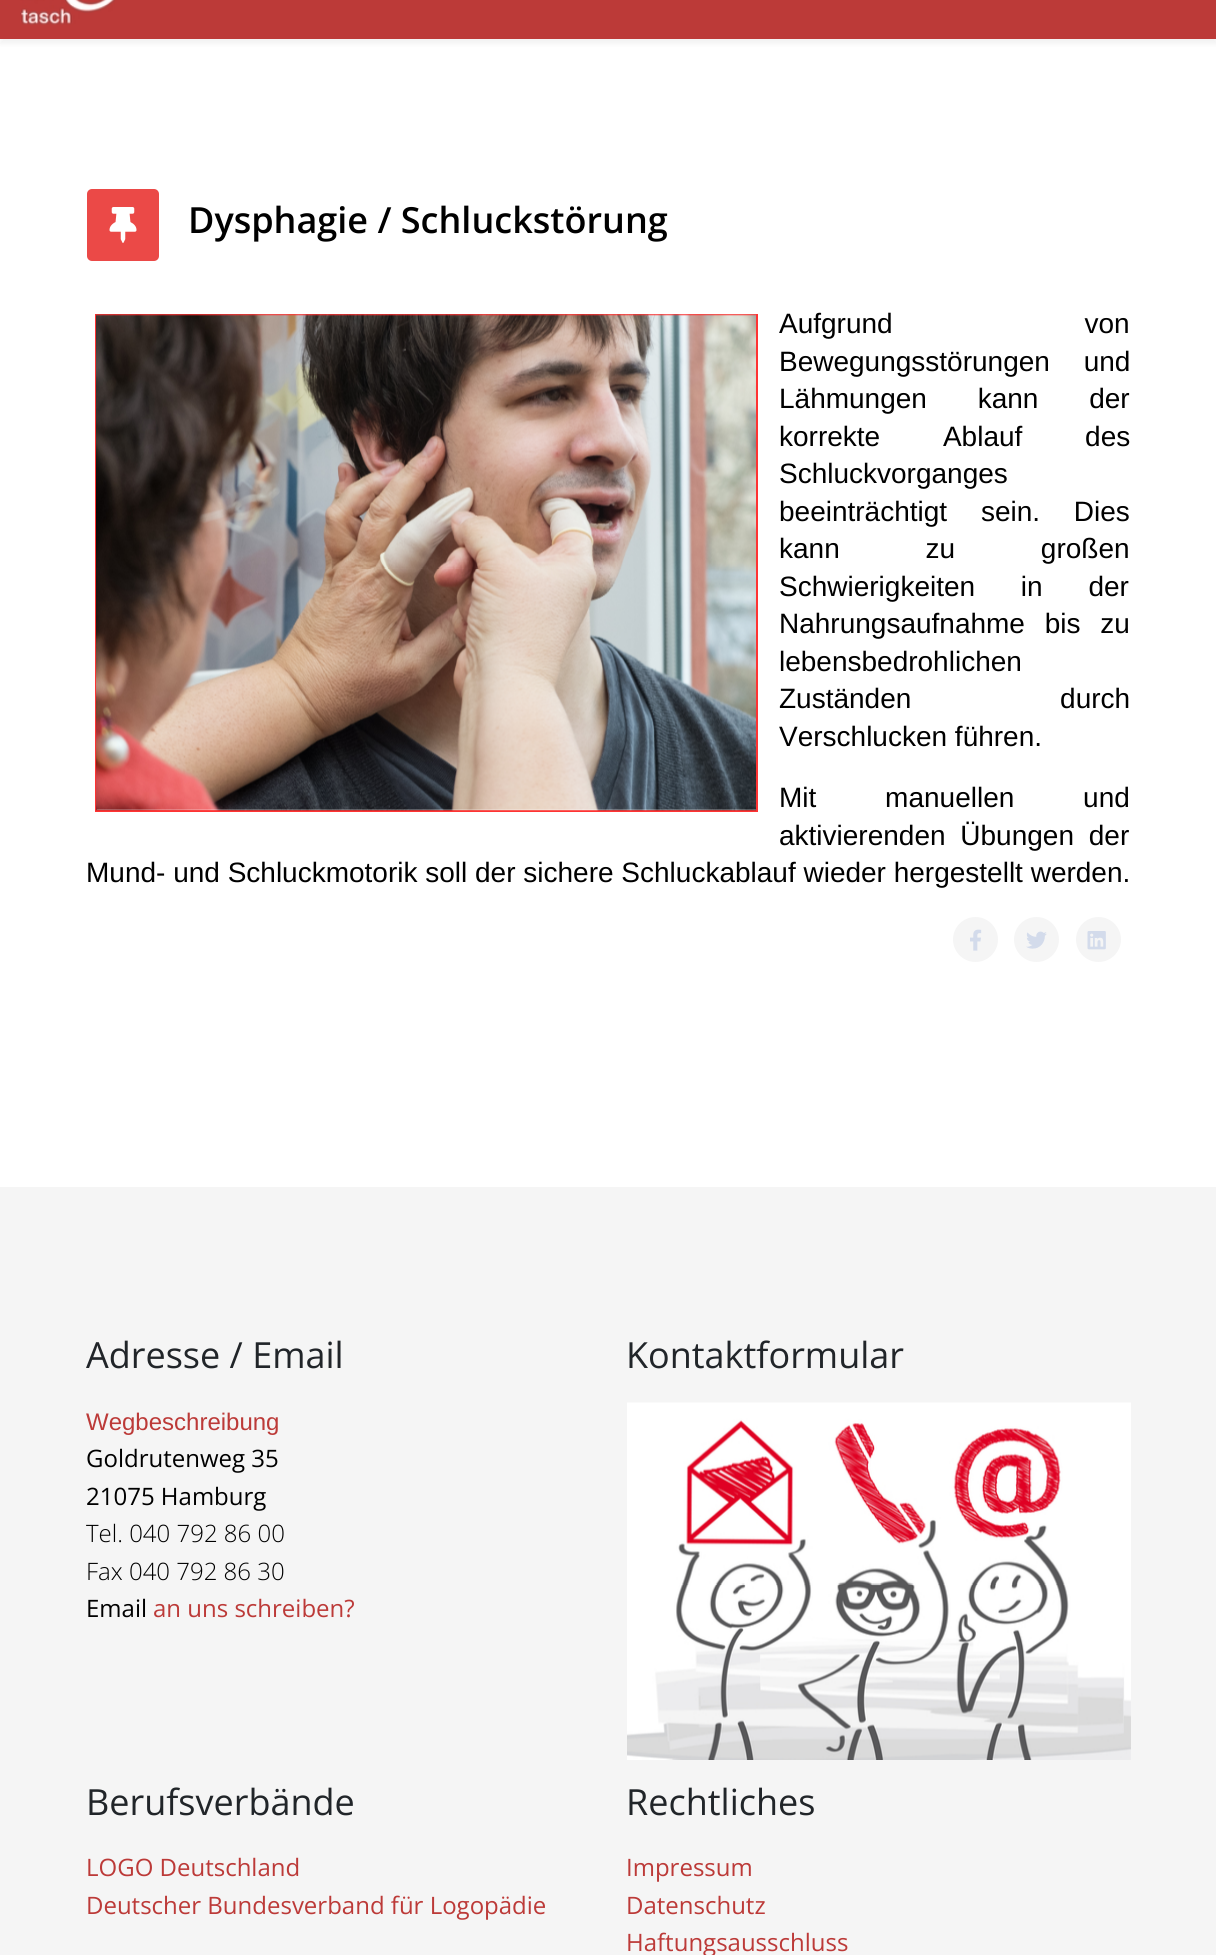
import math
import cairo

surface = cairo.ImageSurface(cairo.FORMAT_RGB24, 1216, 1955)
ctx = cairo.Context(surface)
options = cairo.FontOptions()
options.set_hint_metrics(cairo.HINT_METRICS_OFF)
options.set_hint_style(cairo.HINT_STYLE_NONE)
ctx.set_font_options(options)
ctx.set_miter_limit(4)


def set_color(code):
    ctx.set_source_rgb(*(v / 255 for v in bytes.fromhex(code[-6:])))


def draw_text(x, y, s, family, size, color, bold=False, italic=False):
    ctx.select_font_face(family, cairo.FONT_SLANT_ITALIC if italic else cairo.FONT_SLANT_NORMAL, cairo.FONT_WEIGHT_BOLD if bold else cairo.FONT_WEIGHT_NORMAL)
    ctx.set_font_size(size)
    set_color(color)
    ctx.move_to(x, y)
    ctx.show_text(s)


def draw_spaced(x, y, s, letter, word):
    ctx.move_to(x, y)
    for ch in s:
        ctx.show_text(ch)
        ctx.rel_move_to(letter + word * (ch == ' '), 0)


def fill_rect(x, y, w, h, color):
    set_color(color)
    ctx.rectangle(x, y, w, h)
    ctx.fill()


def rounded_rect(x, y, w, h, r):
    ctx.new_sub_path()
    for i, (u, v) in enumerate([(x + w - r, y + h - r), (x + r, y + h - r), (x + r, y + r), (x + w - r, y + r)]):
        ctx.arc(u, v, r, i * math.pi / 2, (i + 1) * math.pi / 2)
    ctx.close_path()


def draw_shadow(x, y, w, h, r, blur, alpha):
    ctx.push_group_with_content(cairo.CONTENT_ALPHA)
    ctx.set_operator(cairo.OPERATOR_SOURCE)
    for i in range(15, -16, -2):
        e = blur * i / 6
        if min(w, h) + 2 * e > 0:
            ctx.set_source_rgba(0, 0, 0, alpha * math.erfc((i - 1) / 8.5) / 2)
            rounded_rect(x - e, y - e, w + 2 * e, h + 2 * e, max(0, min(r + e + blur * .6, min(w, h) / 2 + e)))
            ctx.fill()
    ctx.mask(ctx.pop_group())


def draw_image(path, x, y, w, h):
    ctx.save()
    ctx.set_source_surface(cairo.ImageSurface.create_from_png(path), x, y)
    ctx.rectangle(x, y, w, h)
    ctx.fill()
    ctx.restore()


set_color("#ffffff")
ctx.paint()
set_color("#000000")
draw_shadow(0, -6, 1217, 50, 0, 2, 0.05)
fill_rect(0, 0, 1216, 39, "#bc3a38")
draw_image("assets/img1.png", 20, 0, 95, 25)
set_color("#eb4947")
rounded_rect(87, 189, 72, 72, 5)
ctx.fill()
draw_image("assets/img2.png", 109, 207, 28, 36)
draw_text(188, 233, "Dysphagie / Schluckstörung", "Open Sans SemiBold", 36, "#000000")
ctx.rectangle(96, 315, 661, 496)
set_color("#ff3333")
ctx.stroke()
draw_image("assets/img3.png", 96, 314, 660, 497)
ctx.select_font_face("Liberation Sans")
ctx.set_font_size(28)
set_color("#000000")
draw_spaced(779, 333, "Aufgrund von", 0, 184)
draw_spaced(779, 371, "Bewegungsstörungen und", 0, 26)
draw_spaced(779, 408, "Lähmungen kann der", 0, 43)
draw_spaced(779, 446, "korrekte Ablauf des", 0, 55)
draw_text(779, 483, "Schluckvorganges", "Liberation Sans", 28, "#000000")
draw_spaced(779, 521, "beeinträchtigt sein. Dies", 0, 26)
draw_spaced(779, 558, "kann zu großen", 0, 78)
draw_spaced(779, 596, "Schwierigkeiten in der", 0, 38)
draw_spaced(779, 633, "Nahrungsaufnahme bis zu", 0, 12)
draw_text(779, 671, "lebensbedrohlichen", "Liberation Sans", 28, "#000000")
draw_spaced(779, 708, "Zuständen durch", 0, 141)
draw_text(779, 746, "Verschlucken führen.", "Liberation Sans", 28, "#000000")
draw_spaced(779, 807, "Mit manuellen und", 0, 61)
draw_spaced(779, 845, "aktivierenden Übungen der", 0, 7)
draw_text(86, 882, "Mund- und Schluckmotorik soll der sichere Schluckablauf wieder hergestellt werden.", "Liberation Sans", 28, "#000000")
set_color("#f5f5f5")
ctx.new_path()
ctx.arc(975.5, 939.5, 22.5, 0, 2 * math.pi)
ctx.fill()
draw_image("assets/img4.png", 970, 929, 12, 22)
ctx.arc(1036.5, 939.5, 22.5, 0, 2 * math.pi)
ctx.fill()
draw_image("assets/img5.png", 1026, 931, 21, 18)
ctx.arc(1098.5, 939.5, 22.5, 0, 2 * math.pi)
ctx.fill()
draw_image("assets/img6.png", 1087, 931, 19, 19)
fill_rect(0, 1187, 1216, 768, "#f5f5f5")
draw_text(86, 1368, "Adresse / Email", "Open Sans", 36, "#212529")
draw_text(86, 1430, "Wegbeschreibung", "Liberation Sans", 24, "#bc3a38")
draw_text(86, 1467, "Goldrutenweg 35", "Open Sans", 24, "#000000")
draw_text(86, 1505, "21075 Hamburg", "Open Sans", 24, "#000000")
draw_text(86, 1542, "Tel. 040 792 86 00", "Open Sans Light", 24, "#000000")
draw_text(86, 1580, "Fax 040 792 86 30", "Open Sans Light", 24, "#000000")
draw_text(86, 1617, "Email", "Open Sans", 24, "#000000")
draw_text(153, 1617, "an uns schreiben?", "Open Sans", 24, "#bc3a38")
draw_text(626, 1368, "Kontaktformular", "Open Sans", 36, "#212529")
draw_image("assets/img7.png", 627, 1402, 504, 358)
draw_text(86, 1815, "Berufsverbände", "Open Sans", 36, "#212529")
draw_text(86, 1876, "LOGO Deutschland", "Open Sans", 24, "#bc3a38")
draw_text(86, 1914, "Deutscher Bundesverband für Logopädie", "Open Sans", 24, "#bc3a38")
draw_text(626, 1815, "Rechtliches", "Open Sans", 36, "#212529")
draw_text(626, 1876, "Impressum", "Open Sans", 24, "#bc3a38")
draw_text(626, 1914, "Datenschutz", "Open Sans", 24, "#bc3a38")
draw_text(626, 1951, "Haftungsausschluss", "Open Sans", 24, "#bc3a38")
surface.write_to_png("output.png")
